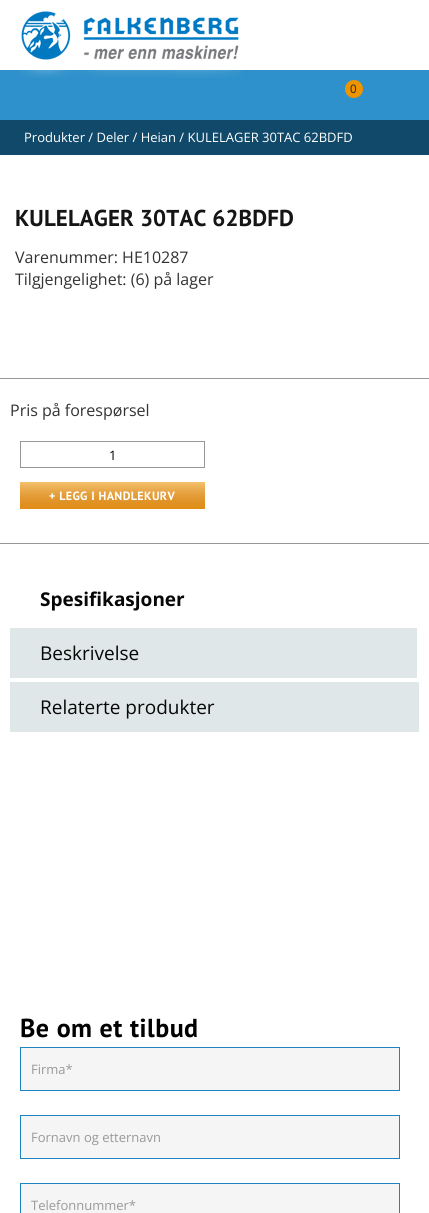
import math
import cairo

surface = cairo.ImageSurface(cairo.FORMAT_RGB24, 429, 1213)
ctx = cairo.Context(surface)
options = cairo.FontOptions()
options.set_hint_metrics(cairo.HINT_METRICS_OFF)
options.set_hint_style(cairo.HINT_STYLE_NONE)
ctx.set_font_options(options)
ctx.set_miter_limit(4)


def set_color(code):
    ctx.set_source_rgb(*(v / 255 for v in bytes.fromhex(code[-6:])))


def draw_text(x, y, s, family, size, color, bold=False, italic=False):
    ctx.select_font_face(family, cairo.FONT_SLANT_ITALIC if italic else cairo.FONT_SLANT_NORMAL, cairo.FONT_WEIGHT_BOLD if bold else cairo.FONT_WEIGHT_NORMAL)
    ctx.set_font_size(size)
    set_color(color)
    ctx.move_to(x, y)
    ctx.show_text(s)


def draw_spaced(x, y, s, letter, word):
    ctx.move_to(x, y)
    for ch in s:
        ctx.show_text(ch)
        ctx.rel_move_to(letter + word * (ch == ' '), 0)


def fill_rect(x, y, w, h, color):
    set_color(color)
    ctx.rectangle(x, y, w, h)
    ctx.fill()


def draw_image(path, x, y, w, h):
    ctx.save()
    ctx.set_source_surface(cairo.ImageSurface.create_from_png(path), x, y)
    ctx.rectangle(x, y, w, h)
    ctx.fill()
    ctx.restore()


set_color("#ffffff")
ctx.paint()
fill_rect(0, 70, 429, 50, "#2f91cb")
draw_image("assets/img1.png", 19, 11, 224, 67)
set_color("#ee9400")
ctx.arc(354, 89, 9, 0, 2 * math.pi)
ctx.fill()
draw_text(350, 93, "0", "PT Sans", 12, "#2d2d2d")
fill_rect(0, 120, 429, 35, "#10496a")
draw_text(24, 142, "Produkter / Deler / Heian / KULELAGER 30TAC 62BDFD", "Open Sans", 13, "#ffffff")
ctx.select_font_face("PT Sans", cairo.FONT_SLANT_NORMAL, cairo.FONT_WEIGHT_BOLD)
ctx.set_font_size(23)
set_color("#151515")
draw_spaced(15, 226, "KULELAGER 30TAC 62BDFD", 0.1, 0)
draw_text(15, 263, "Varenummer: HE10287", "Open Sans", 16, "#333333")
draw_text(15, 285, "Tilgjengelighet: (6) på lager", "Open Sans", 16, "#333333")
fill_rect(0, 378, 429, 1, "#979797")
draw_text(10, 416, "Pris på forespørsel", "Open Sans", 16, "#333333")
ctx.rectangle(20.5, 441.5, 184, 26)
set_color("#979797")
ctx.set_line_width(1)
ctx.stroke()
draw_text(109, 460, "1", "Open Sans", 13, "#000000")
draw_image("assets/img2.png", 20, 482, 185, 27)
ctx.select_font_face("PT Sans", cairo.FONT_SLANT_NORMAL, cairo.FONT_WEIGHT_BOLD)
ctx.set_font_size(12)
set_color("#ffffff")
draw_spaced(49, 500, "+ LEGG I HANDLEKURV", 0.4, 0)
fill_rect(0, 543, 429, 1, "#979797")
draw_text(40, 606, "Spesifikasjoner", "Open Sans", 19, "#070707", bold=True)
fill_rect(10, 628, 407, 50, "#e0e7e8")
draw_text(40, 660, "Beskrivelse", "Open Sans", 19, "#070707")
fill_rect(10, 682, 409, 50, "#e0e7e8")
draw_text(40, 714, "Relaterte produkter", "Open Sans", 19, "#070707")
ctx.select_font_face("PT Sans", cairo.FONT_SLANT_NORMAL, cairo.FONT_WEIGHT_BOLD)
ctx.set_font_size(26)
set_color("#000000")
draw_spaced(20, 1037, "Be om et tilbud", 0.5, 0)
set_color("#f5f5f5")
ctx.rectangle(20.5, 1047.5, 379, 43)
ctx.fill_preserve()
set_color("#1d84c2")
ctx.stroke()
draw_text(31, 1074, "Firma*", "Open Sans", 13, "#999999")
set_color("#f5f5f5")
ctx.rectangle(20.5, 1115.5, 379, 43)
ctx.fill_preserve()
set_color("#1d84c2")
ctx.stroke()
draw_text(31, 1142, "Fornavn og etternavn", "Open Sans", 13, "#999999")
set_color("#f5f5f5")
ctx.rectangle(20.5, 1183.5, 379, 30)
ctx.fill_preserve()
set_color("#1d84c2")
ctx.stroke()
draw_text(31, 1210, "Telefonnummer*", "Open Sans", 13, "#999999")
surface.write_to_png("output.png")
